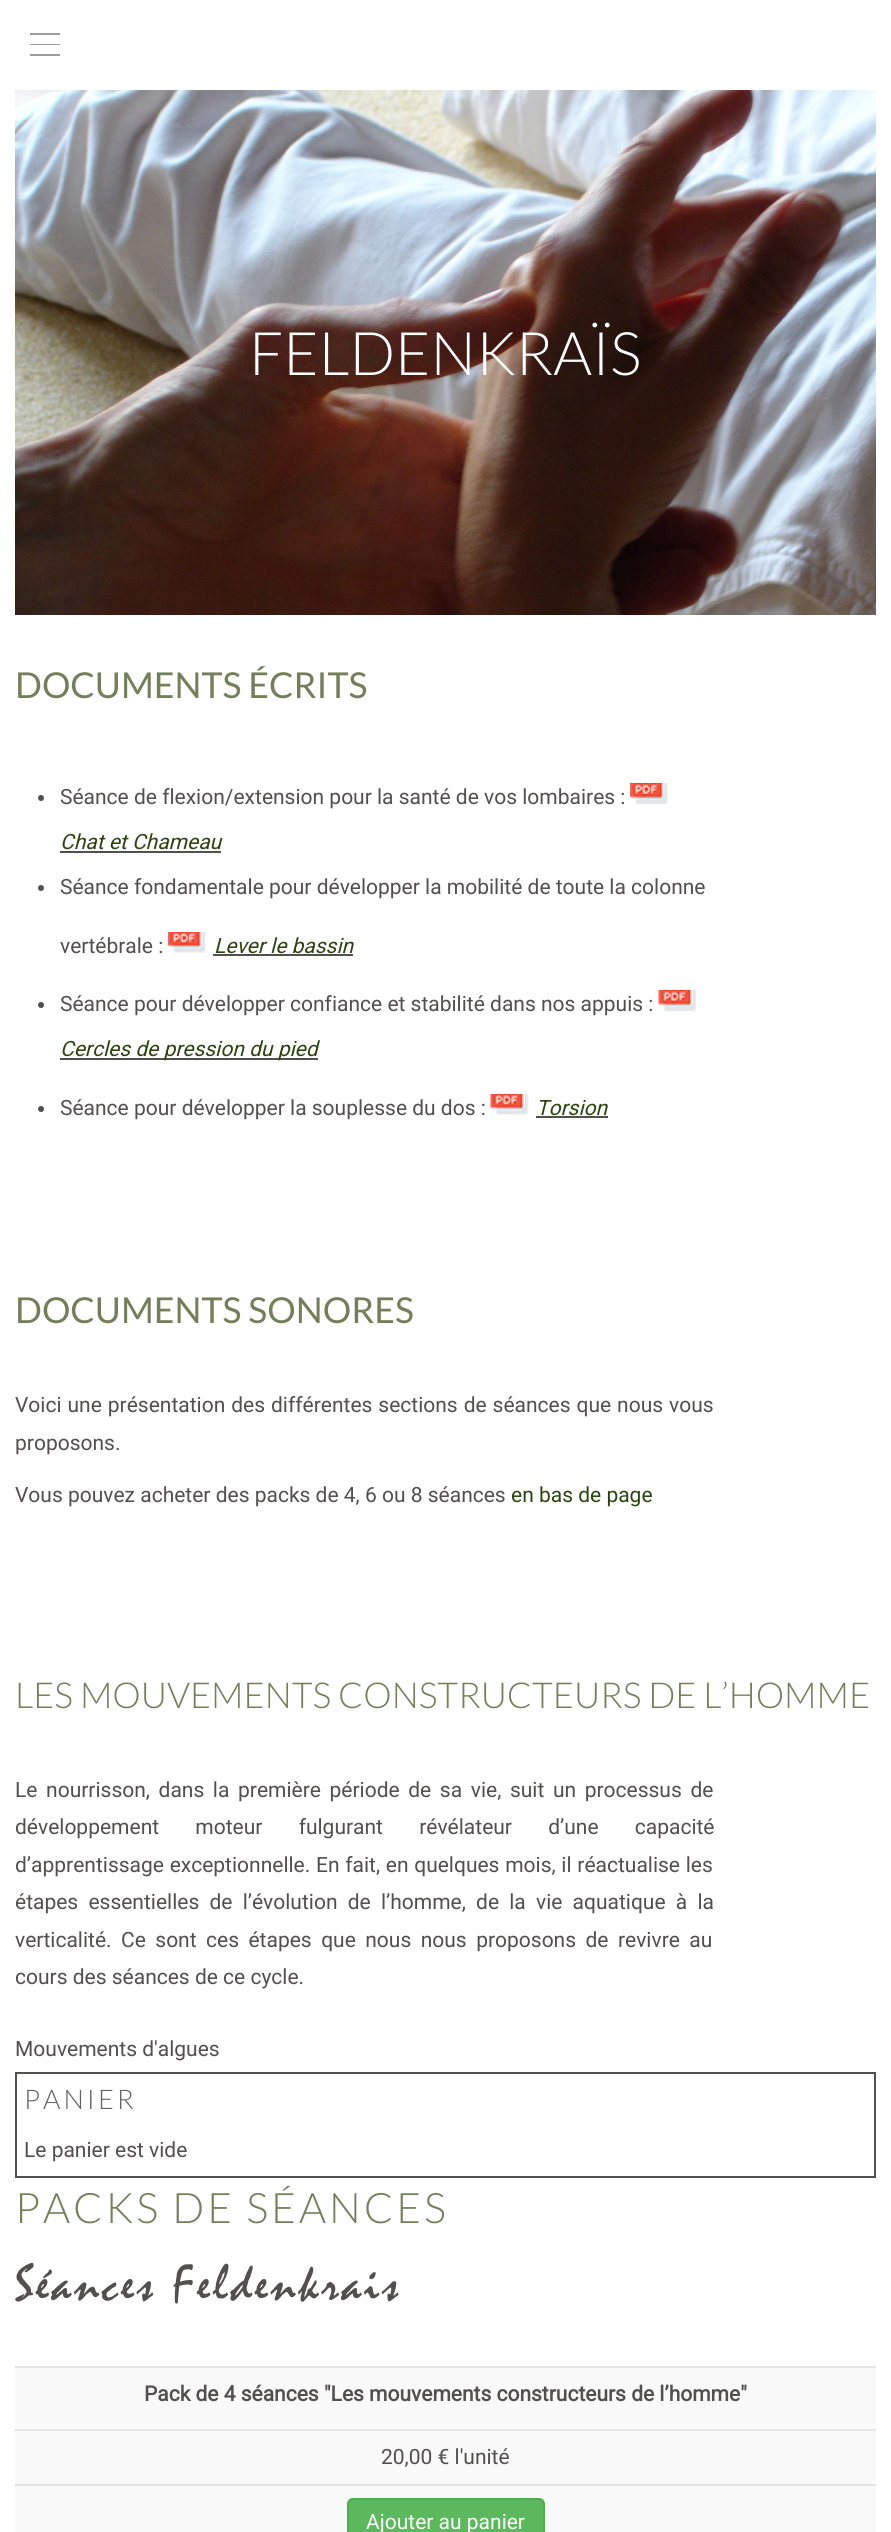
import math
import cairo

surface = cairo.ImageSurface(cairo.FORMAT_RGB24, 891, 2532)
ctx = cairo.Context(surface)
options = cairo.FontOptions()
options.set_hint_metrics(cairo.HINT_METRICS_OFF)
options.set_hint_style(cairo.HINT_STYLE_NONE)
ctx.set_font_options(options)
ctx.set_miter_limit(4)


def set_color(code):
    ctx.set_source_rgb(*(v / 255 for v in bytes.fromhex(code[-6:])))


def draw_text(x, y, s, family, size, color, bold=False, italic=False):
    ctx.select_font_face(family, cairo.FONT_SLANT_ITALIC if italic else cairo.FONT_SLANT_NORMAL, cairo.FONT_WEIGHT_BOLD if bold else cairo.FONT_WEIGHT_NORMAL)
    ctx.set_font_size(size)
    set_color(color)
    ctx.move_to(x, y)
    ctx.show_text(s)


def draw_spaced(x, y, s, letter, word):
    ctx.move_to(x, y)
    for ch in s:
        ctx.show_text(ch)
        ctx.rel_move_to(letter + word * (ch == ' '), 0)


def fill_rect(x, y, w, h, color):
    set_color(color)
    ctx.rectangle(x, y, w, h)
    ctx.fill()


def rounded_rect(x, y, w, h, r):
    ctx.new_sub_path()
    for i, (u, v) in enumerate([(x + w - r, y + h - r), (x + r, y + h - r), (x + r, y + r), (x + w - r, y + r)]):
        ctx.arc(u, v, r, i * math.pi / 2, (i + 1) * math.pi / 2)
    ctx.close_path()


def draw_image(path, x, y, w, h):
    ctx.save()
    ctx.set_source_surface(cairo.ImageSurface.create_from_png(path), x, y)
    ctx.rectangle(x, y, w, h)
    ctx.fill()
    ctx.restore()


set_color("#ffffff")
ctx.paint()
fill_rect(30, 33, 30, 2, "#9f9b9b")
fill_rect(30, 44, 30, 1, "#9f9b9b")
fill_rect(30, 54, 30, 2, "#9f9b9b")
draw_image("assets/img1.png", 15, 90, 861, 525)
draw_text(249, 375, "FELDENKRAÏS", "Lato Light", 60, "#ffffff")
draw_text(15, 698, "DOCUMENTS ÉCRITS", "Lato", 35.7, "#727f59")
set_color("#524f4f")
ctx.new_path()
ctx.arc(41, 798, 3, 0, 2 * math.pi)
ctx.fill()
draw_text(60, 804, "Séance de flexion/extension pour la santé de vos lombaires :", "Roboto", 21, "#524f4f")
draw_image("assets/img2.png", 630, 783, 38, 21)
draw_text(60, 849, "Chat et Chameau", "Roboto", 21, "#2c450e", italic=True)
fill_rect(60, 851, 161, 2, "#524f4f")
ctx.new_path()
ctx.arc(41, 888, 3, 0, 2 * math.pi)
ctx.fill()
draw_text(60, 894, "Séance fondamentale pour développer la mobilité de toute la colonne", "Roboto", 21, "#524f4f")
draw_text(60, 953, "vertébrale :", "Roboto", 21, "#524f4f")
draw_image("assets/img3.png", 168, 932, 38, 21)
draw_text(214, 953, "Lever le bassin", "Roboto", 21, "#2c450e", italic=True)
fill_rect(213, 954, 140, 2, "#524f4f")
ctx.new_path()
ctx.arc(41, 1005, 3, 0, 2 * math.pi)
ctx.fill()
draw_text(60, 1011, "Séance pour développer confiance et stabilité dans nos appuis :", "Roboto", 21, "#524f4f")
draw_image("assets/img4.png", 658, 990, 38, 21)
fill_rect(60, 1058, 258, 2, "#524f4f")
draw_text(60, 1056, "Cercles de pression du pied", "Roboto", 21, "#2c450e", italic=True)
set_color("#524f4f")
ctx.new_path()
ctx.arc(41, 1109, 3, 0, 2 * math.pi)
ctx.fill()
draw_text(60, 1115, "Séance pour développer la souplesse du dos :", "Roboto", 21, "#524f4f")
draw_image("assets/img5.png", 490, 1094, 39, 21)
draw_text(536, 1115, "Torsion", "Roboto", 21, "#2c450e", italic=True)
fill_rect(536, 1116, 72, 2, "#524f4f")
draw_text(15, 1323, "DOCUMENTS SONORES", "Lato", 35.7, "#727f59")
ctx.select_font_face("Roboto")
ctx.set_font_size(21)
set_color("#524f4f")
draw_spaced(15, 1412, "Voici une présentation des différentes sections de séances que nous vous", 0, 0.75)
draw_text(15, 1450, "proposons.", "Roboto", 21, "#524f4f")
draw_text(15, 1502, "Vous pouvez acheter des packs de 4, 6 ou 8 séances", "Roboto", 21, "#524f4f")
draw_text(511, 1502, "en bas de page", "Roboto", 21, "#2c450e")
draw_text(15, 1708, "LES MOUVEMENTS CONSTRUCTEURS DE L’HOMME", "Lato Light", 35.7, "#727f59")
ctx.select_font_face("Roboto")
ctx.set_font_size(21)
set_color("#524f4f")
draw_spaced(15, 1797, "Le nourrisson, dans la première période de sa vie, suit un processus de", 0, 3.4)
draw_spaced(15, 1834, "développement moteur fulgurant révélateur d’une capacité", 0, 31)
draw_spaced(15, 1872, "d’apprentissage exceptionnelle. En fait, en quelques mois, il réactualise les", 0, 0.5)
draw_spaced(15, 1909, "étapes essentielles de l’évolution de l’homme, de la vie aquatique à la", 0, 5)
draw_spaced(15, 1947, "verticalité. Ce sont ces étapes que nous nous proposons de revivre au", 0, 4.25)
draw_text(15, 1984, "cours des séances de ce cycle.", "Roboto", 21, "#524f4f")
draw_text(15, 2056, "Mouvements d'algues", "Roboto", 21, "#524f4f")
ctx.rectangle(16, 2073, 859, 104)
ctx.stroke()
ctx.select_font_face("Lato Light")
ctx.set_font_size(27)
set_color("#626262")
draw_spaced(24, 2109, "PANIER", 3, 0)
draw_text(24, 2157, "Le panier est vide", "Roboto", 21, "#524f4f")
ctx.select_font_face("Lato Light")
ctx.set_font_size(42)
set_color("#727f59")
draw_spaced(15, 2223, "PACKS DE SÉANCES", 3, 0)
ctx.select_font_face("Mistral")
ctx.set_font_size(52.5)
set_color("#524f4f")
draw_spaced(15, 2300, "Séances Feldenkrais", 3, 0)
fill_rect(15, 2368, 861, 61, "#f9f9f9")
fill_rect(15, 2366, 861, 2, "#e5e5e5")
draw_text(144, 2401, "Pack de 4 séances \"Les mouvements constructeurs de l’homme\"", "Roboto", 21, "#524f4f", bold=True)
fill_rect(15, 2431, 861, 53, "#f9f9f9")
fill_rect(15, 2429, 861, 2, "#e5e5e5")
draw_text(381, 2464, "20,00 € l'unité", "Roboto", 21, "#524f4f")
fill_rect(15, 2486, 861, 46, "#f9f9f9")
fill_rect(15, 2484, 861, 2, "#e5e5e5")
set_color("#5cb85c")
rounded_rect(348, 2499, 196, 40, 5)
ctx.fill_preserve()
set_color("#4cae4c")
ctx.stroke()
draw_text(366, 2529, "Ajouter au panier", "Roboto", 21, "#ffffff")
surface.write_to_png("output.png")
